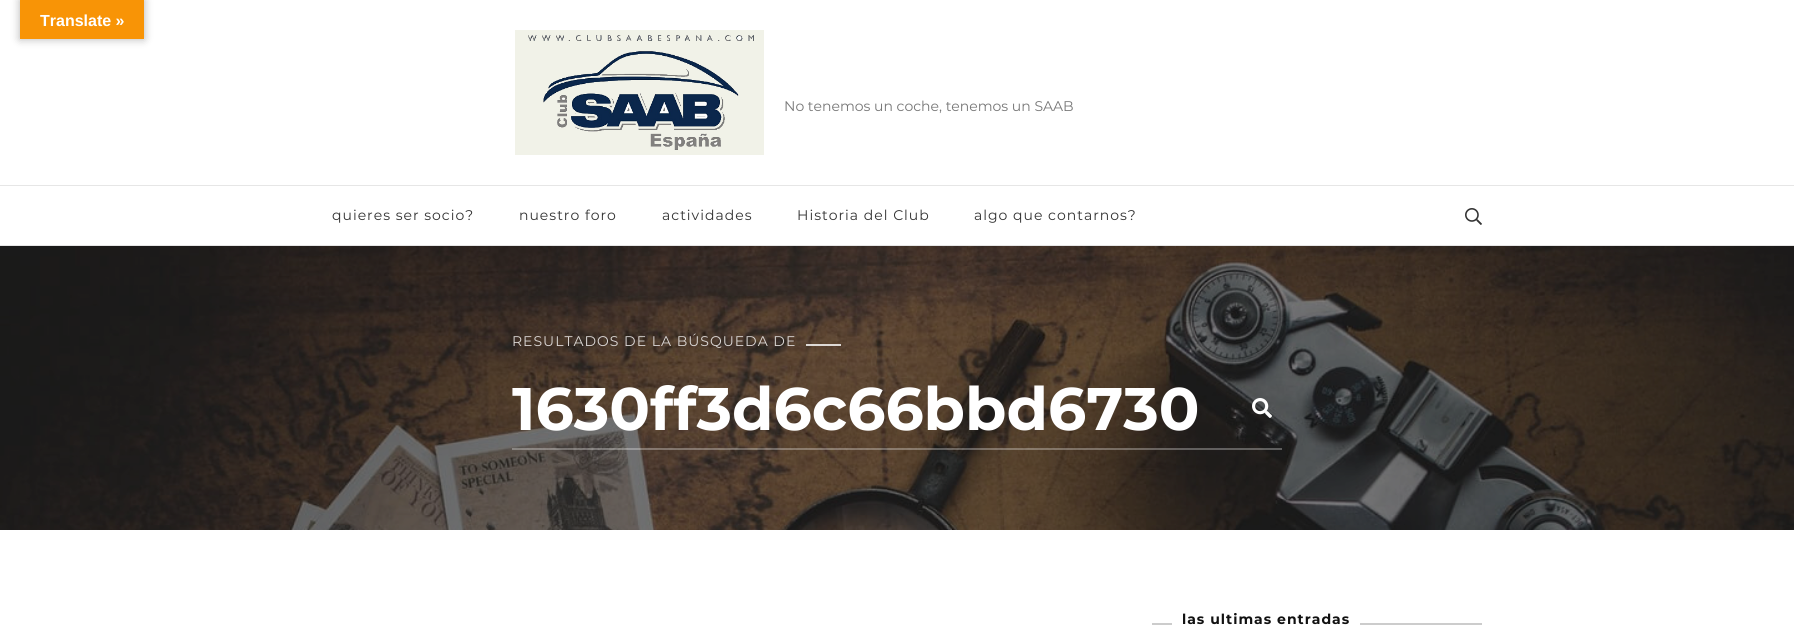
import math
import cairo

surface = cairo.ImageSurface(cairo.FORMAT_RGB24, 1794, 633)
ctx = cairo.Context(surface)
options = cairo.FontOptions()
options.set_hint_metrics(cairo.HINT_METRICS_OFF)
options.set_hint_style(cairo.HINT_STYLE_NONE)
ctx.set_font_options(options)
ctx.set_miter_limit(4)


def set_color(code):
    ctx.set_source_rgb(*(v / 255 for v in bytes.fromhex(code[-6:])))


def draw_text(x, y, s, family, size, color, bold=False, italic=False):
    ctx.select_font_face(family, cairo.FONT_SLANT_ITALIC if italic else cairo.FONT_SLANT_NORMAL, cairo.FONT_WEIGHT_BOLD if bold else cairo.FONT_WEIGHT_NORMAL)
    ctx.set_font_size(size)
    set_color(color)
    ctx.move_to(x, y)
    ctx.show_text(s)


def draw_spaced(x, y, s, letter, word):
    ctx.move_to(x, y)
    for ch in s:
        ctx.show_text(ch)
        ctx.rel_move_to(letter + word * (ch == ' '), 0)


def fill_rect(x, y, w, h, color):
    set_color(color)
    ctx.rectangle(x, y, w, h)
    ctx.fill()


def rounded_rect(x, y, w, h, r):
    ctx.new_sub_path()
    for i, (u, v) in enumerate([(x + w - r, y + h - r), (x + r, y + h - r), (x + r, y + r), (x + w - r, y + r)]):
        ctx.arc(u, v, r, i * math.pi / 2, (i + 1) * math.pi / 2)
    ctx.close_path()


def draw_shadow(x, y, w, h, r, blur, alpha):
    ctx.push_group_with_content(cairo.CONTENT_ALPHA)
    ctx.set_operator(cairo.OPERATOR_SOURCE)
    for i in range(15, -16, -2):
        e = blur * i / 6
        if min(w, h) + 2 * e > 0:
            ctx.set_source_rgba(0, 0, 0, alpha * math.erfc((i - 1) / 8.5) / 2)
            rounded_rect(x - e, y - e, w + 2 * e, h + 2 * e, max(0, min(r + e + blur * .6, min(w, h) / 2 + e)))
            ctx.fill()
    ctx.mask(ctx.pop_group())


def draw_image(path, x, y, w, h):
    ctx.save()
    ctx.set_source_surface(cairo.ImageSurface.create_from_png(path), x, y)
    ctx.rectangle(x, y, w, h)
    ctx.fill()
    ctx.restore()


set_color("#ffffff")
ctx.paint()
set_color("#000000")
draw_shadow(20, 0, 124, 39, 0, 4.5, 0.3)
fill_rect(20, 0, 124, 39, "#f89406")
draw_text(40, 26, "Translate »", "Liberation Sans", 16, "#ffffff", bold=True)
fill_rect(0, 245, 1794, 1, "#e6e6e6")
draw_image("assets/img1.png", 515, 30, 249, 125)
draw_text(784, 111, "No tenemos un coche, tenemos un SAAB", "Montserrat", 14, "#777777")
fill_rect(0, 185, 1794, 1, "#e6e6e6")
set_color("#333333")
draw_spaced(332, 220, "quieres ser socio?", 1, 0)
draw_spaced(519, 220, "nuestro foro", 1, 0)
draw_spaced(662, 220, "actividades", 1, 0)
draw_spaced(797, 220, "Historia del Club", 1, 0)
draw_spaced(974, 220, "algo que contarnos?", 1, 0)
draw_image("assets/img2.png", 1465, 208, 17, 17)
draw_image("assets/img3.png", 0, 246, 1794, 284)
set_color("#dad6d4")
draw_spaced(512, 346, "RESULTADOS DE LA BÚSQUEDA DE", 1, 0)
ctx.set_source_rgba(1, 1, 1, 0.8)
ctx.rectangle(806, 344, 35, 2)
ctx.fill()
ctx.set_source_rgba(1, 1, 1, 0.3)
ctx.rectangle(512, 448, 770, 2)
ctx.fill()
draw_text(512, 430, "1630ff3d6c66bbd6730", "Montserrat", 60, "#ffffff", bold=True)
draw_image("assets/img4.png", 1252, 398, 20, 20)
fill_rect(1152, 623, 330, 2, "#cccccc")
fill_rect(1172, 623, 188, 2, "#ffffff")
ctx.set_font_size(14)
set_color("#111111")
draw_spaced(1182, 624, "las ultimas entradas", 1, 0)
surface.write_to_png("output.png")
